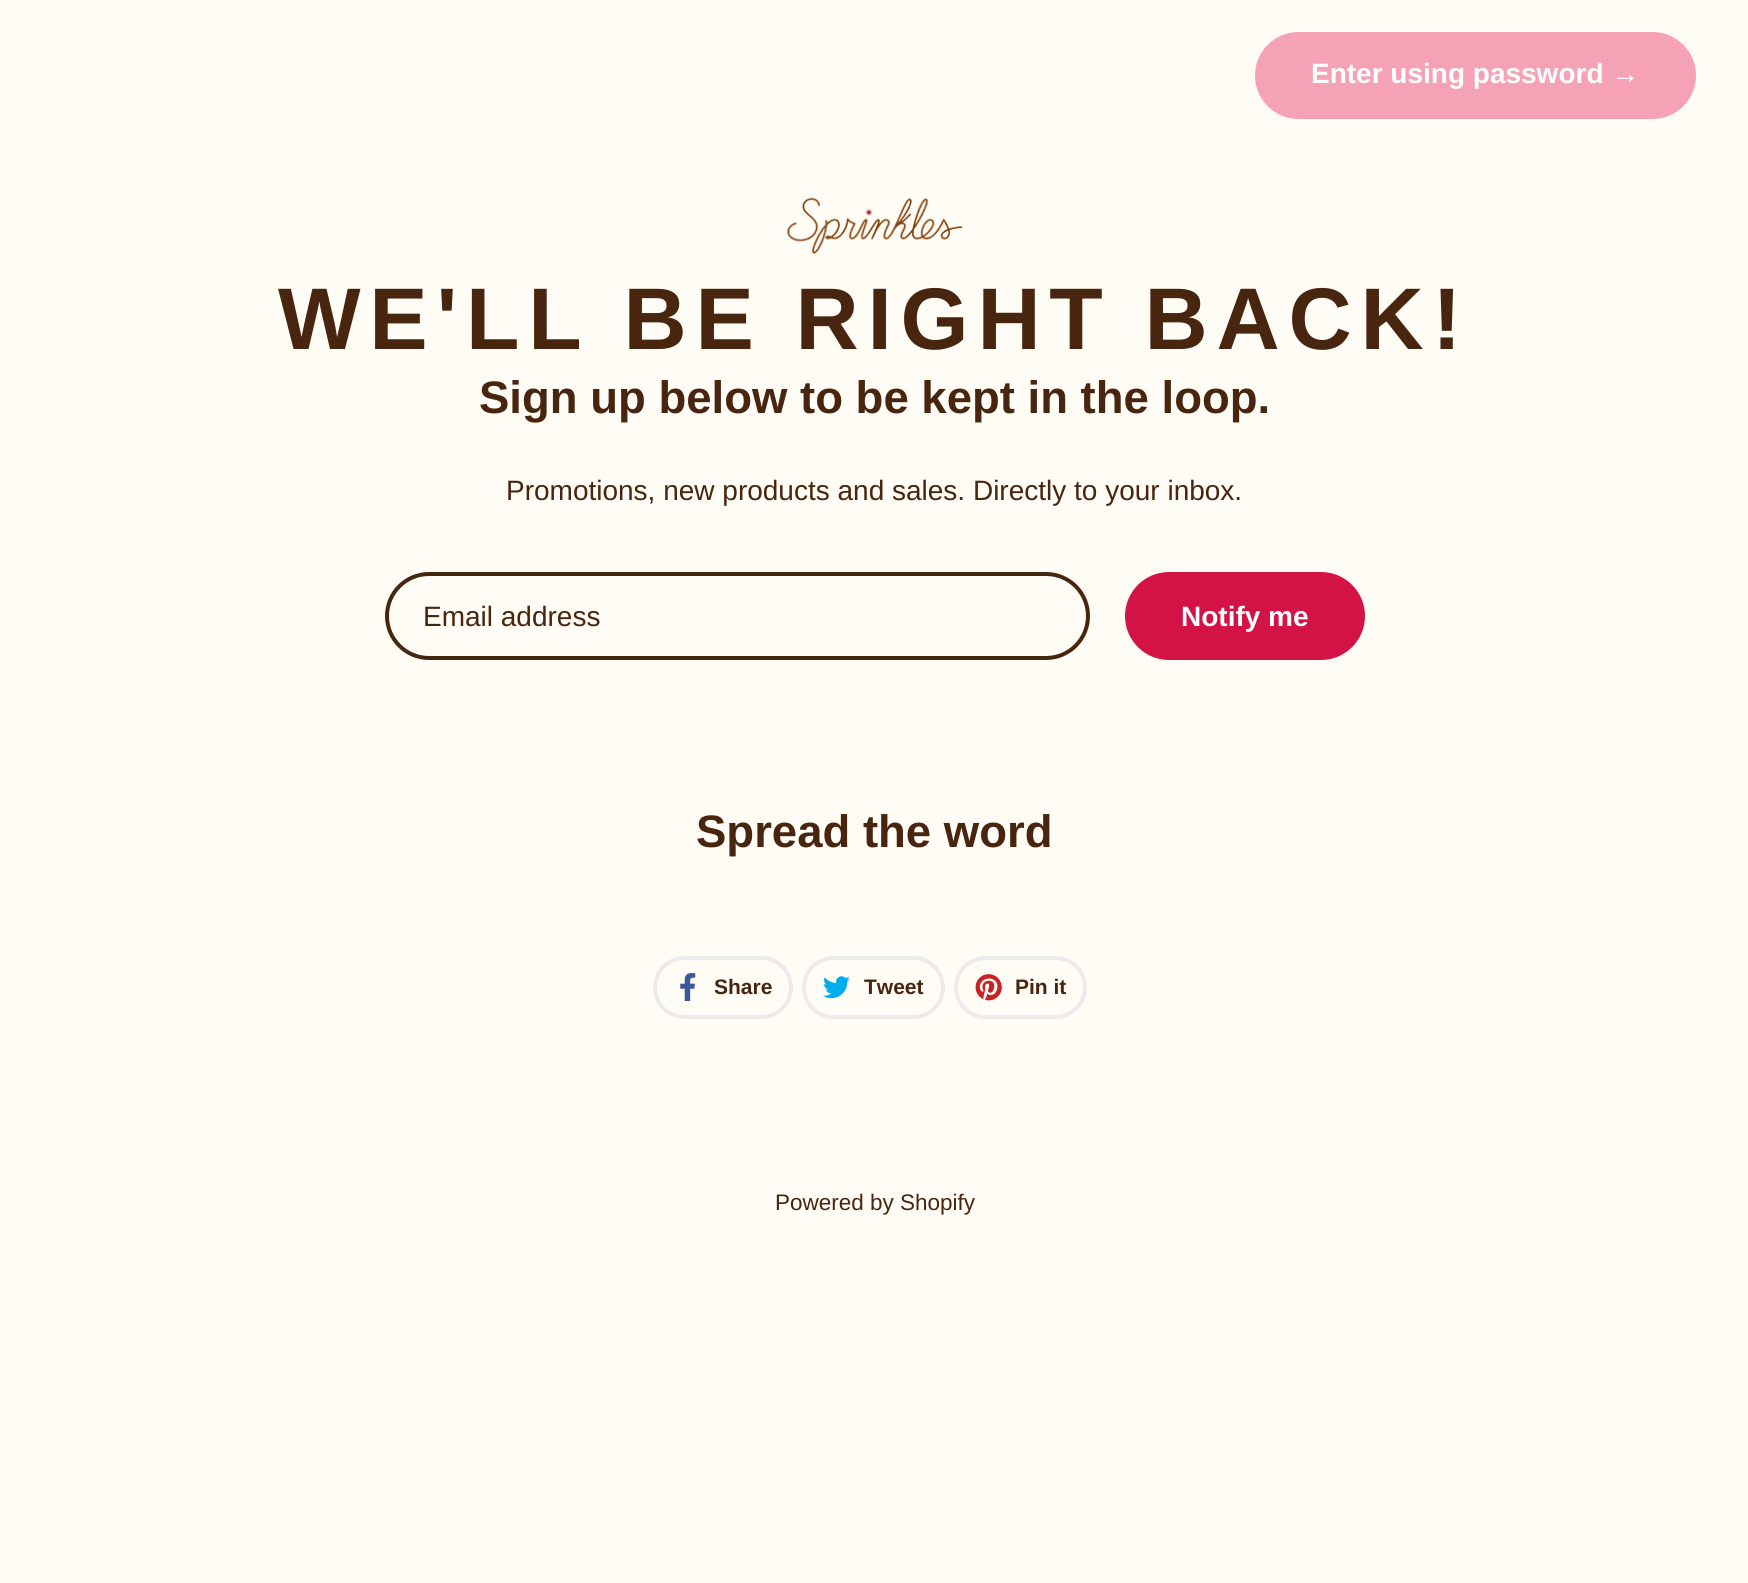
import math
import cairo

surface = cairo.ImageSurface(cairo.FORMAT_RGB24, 1748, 1583)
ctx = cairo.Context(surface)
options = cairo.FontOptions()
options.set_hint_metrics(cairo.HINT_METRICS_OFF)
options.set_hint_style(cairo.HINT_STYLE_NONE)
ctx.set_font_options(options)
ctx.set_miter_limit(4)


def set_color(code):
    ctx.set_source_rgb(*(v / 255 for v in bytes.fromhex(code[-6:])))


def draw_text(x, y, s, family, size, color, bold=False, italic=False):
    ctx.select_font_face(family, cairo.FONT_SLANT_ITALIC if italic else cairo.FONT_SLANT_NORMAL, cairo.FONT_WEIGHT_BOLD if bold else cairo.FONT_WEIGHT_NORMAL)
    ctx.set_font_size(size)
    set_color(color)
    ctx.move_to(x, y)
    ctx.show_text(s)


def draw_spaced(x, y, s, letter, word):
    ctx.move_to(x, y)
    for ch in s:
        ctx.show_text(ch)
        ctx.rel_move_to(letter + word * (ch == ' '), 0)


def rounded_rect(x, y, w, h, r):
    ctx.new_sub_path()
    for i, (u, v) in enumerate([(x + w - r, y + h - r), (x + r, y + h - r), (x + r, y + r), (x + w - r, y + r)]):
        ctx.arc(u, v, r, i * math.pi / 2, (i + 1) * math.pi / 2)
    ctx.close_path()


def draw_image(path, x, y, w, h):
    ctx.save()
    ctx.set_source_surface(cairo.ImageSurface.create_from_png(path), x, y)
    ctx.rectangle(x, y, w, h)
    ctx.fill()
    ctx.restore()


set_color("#fffbf5")
ctx.paint()
set_color("#f6a2b6")
rounded_rect(1257, 34, 437, 83, 41.5)
ctx.fill_preserve()
ctx.set_line_width(4)
ctx.stroke()
draw_text(1311, 83, "Enter using password →", "Liberation Sans", 28, "#ffffff", bold=True)
draw_image("assets/img1.png", 787, 197, 176, 57)
ctx.set_font_size(87.5)
set_color("#48250f")
draw_spaced(278, 349, "WE'LL BE RIGHT BACK!", 8.75, 0)
draw_text(479, 413, "Sign up below to be kept in the loop.", "Liberation Sans", 45.5, "#48250f", bold=True)
draw_text(506, 500, "Promotions, new products and sales. Directly to your inbox.", "Liberation Sans", 28, "#48250f")
rounded_rect(387, 574, 701, 84, 42)
ctx.stroke()
draw_text(423, 626, "Email address", "Liberation Sans", 28, "#48250f")
set_color("#d31245")
rounded_rect(1125, 572, 240, 88, 44)
ctx.fill()
draw_text(1181, 626, "Notify me", "Liberation Sans", 28, "#ffffff", bold=True)
draw_text(696, 847, "Spread the word", "Liberation Sans", 45.5, "#48250f", bold=True)
rounded_rect(655, 958, 136, 59, 29.5)
set_color("#ebebeb")
ctx.stroke()
draw_image("assets/img2.png", 680, 973, 16, 28)
draw_text(714, 994, "Share", "Liberation Sans", 21, "#48250f", bold=True)
rounded_rect(804, 958, 139, 59, 29.5)
set_color("#ebebeb")
ctx.stroke()
draw_image("assets/img3.png", 823, 976, 27, 23)
draw_text(864, 994, "Tweet", "Liberation Sans", 21, "#48250f", bold=True)
rounded_rect(956, 958, 129, 59, 29.5)
set_color("#ebebeb")
ctx.stroke()
draw_image("assets/img4.png", 975, 974, 27, 27)
draw_text(1015, 994, "Pin it", "Liberation Sans", 21, "#48250f", bold=True)
draw_text(775, 1210, "Powered by Shopify", "Liberation Sans", 22.5, "#48250f")
surface.write_to_png("output.png")
